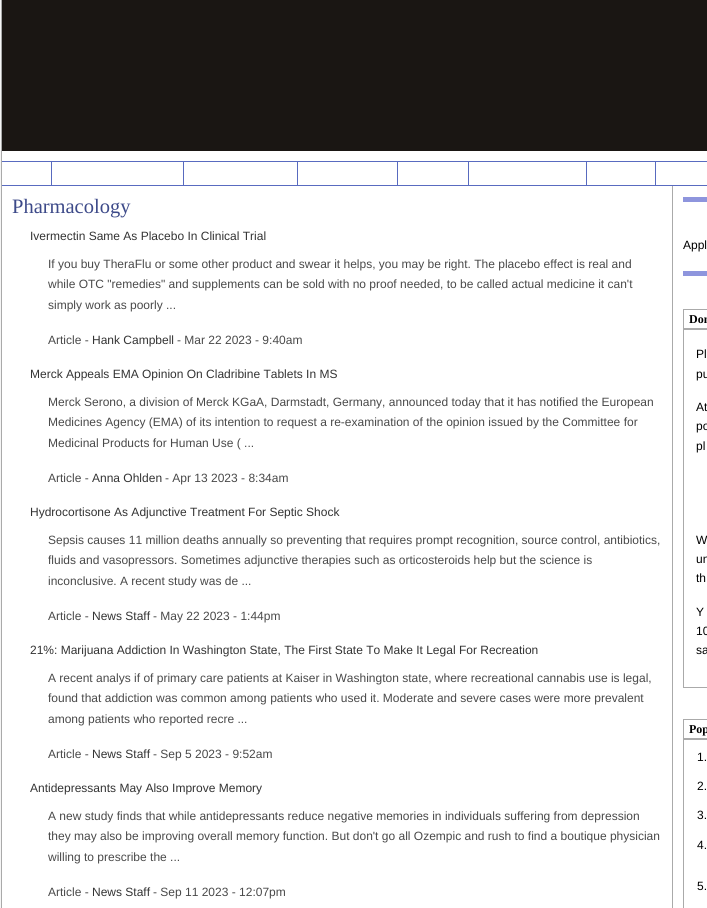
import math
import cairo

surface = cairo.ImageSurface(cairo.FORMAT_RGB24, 707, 908)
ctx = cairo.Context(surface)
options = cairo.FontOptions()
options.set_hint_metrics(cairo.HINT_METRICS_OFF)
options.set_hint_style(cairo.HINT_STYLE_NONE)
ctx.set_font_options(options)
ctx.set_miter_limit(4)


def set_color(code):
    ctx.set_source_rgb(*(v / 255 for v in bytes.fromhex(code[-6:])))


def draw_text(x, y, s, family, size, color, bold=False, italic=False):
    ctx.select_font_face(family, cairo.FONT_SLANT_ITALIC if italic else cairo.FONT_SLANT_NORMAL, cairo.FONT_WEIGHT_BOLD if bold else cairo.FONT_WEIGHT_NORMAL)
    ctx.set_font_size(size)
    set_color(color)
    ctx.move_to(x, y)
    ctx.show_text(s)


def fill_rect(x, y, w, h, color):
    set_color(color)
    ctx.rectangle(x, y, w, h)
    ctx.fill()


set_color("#f5f5f5")
ctx.paint()
fill_rect(2, 151, 705, 757, "#ffffff")
fill_rect(1, 0, 1, 908, "#aaaaaa")
fill_rect(2, 0, 705, 151, "#1a1613")
fill_rect(2, 161, 705, 1, "#596bc0")
fill_rect(2, 185, 705, 1, "#596bc0")
fill_rect(51, 162, 1, 23, "#586abf")
fill_rect(183, 162, 1, 23, "#586abf")
fill_rect(297, 162, 1, 23, "#586abf")
fill_rect(397, 162, 1, 23, "#586abf")
fill_rect(468, 162, 1, 23, "#586abf")
fill_rect(586, 162, 1, 23, "#586abf")
fill_rect(655, 162, 1, 23, "#586abf")
fill_rect(672, 186, 1, 722, "#aaaaaa")
draw_text(12, 213, "Pharmacology", "Liberation Serif", 20.5, "#3d4a89")
draw_text(30, 240, "Ivermectin Same As Placebo In Clinical Trial", "Liberation Sans", 12, "#333333")
draw_text(48, 268, "If you buy TheraFlu or some other product and swear it helps, you may be right. The placebo effect is real and", "Liberation Sans", 12, "#494949")
draw_text(48, 288, "while OTC \"remedies\" and supplements can be sold with no proof needed, to be called actual medicine it can't", "Liberation Sans", 12, "#494949")
draw_text(48, 309, "simply work as poorly ...", "Liberation Sans", 12, "#494949")
draw_text(48, 344, "Article -", "Liberation Sans", 12, "#494949")
draw_text(92, 344, "Hank Campbell", "Liberation Sans", 12, "#333333")
draw_text(177, 344, "- Mar 22 2023 - 9:40am", "Liberation Sans", 12, "#494949")
draw_text(30, 378, "Merck Appeals EMA Opinion On Cladribine Tablets In MS", "Liberation Sans", 12, "#333333")
draw_text(48, 406, "Merck Serono, a division of Merck KGaA, Darmstadt, Germany, announced today that it has notified the European", "Liberation Sans", 12, "#494949")
draw_text(48, 426, "Medicines Agency (EMA) of its intention to request a re-examination of the opinion issued by the Committee for", "Liberation Sans", 12, "#494949")
draw_text(48, 447, "Medicinal Products for Human Use ( ...", "Liberation Sans", 12, "#494949")
draw_text(48, 482, "Article -", "Liberation Sans", 12, "#494949")
draw_text(92, 482, "Anna Ohlden", "Liberation Sans", 12, "#333333")
draw_text(165, 482, "- Apr 13 2023 - 8:34am", "Liberation Sans", 12, "#494949")
draw_text(30, 516, "Hydrocortisone As Adjunctive Treatment For Septic Shock", "Liberation Sans", 12, "#333333")
draw_text(48, 544, "Sepsis causes 11 million deaths annually so preventing that requires prompt recognition, source control, antibiotics,", "Liberation Sans", 12, "#494949")
draw_text(48, 564, "fluids and vasopressors. Sometimes adjunctive therapies such as orticosteroids help but the science is", "Liberation Sans", 12, "#494949")
draw_text(48, 585, "inconclusive. A recent study was de ...", "Liberation Sans", 12, "#494949")
draw_text(48, 620, "Article -", "Liberation Sans", 12, "#494949")
draw_text(92, 620, "News Staff", "Liberation Sans", 12, "#333333")
draw_text(153, 620, "- May 22 2023 - 1:44pm", "Liberation Sans", 12, "#494949")
draw_text(30, 654, "21%: Marijuana Addiction In Washington State, The First State To Make It Legal For Recreation", "Liberation Sans", 12, "#333333")
draw_text(48, 682, "A recent analys if of primary care patients at Kaiser in Washington state, where recreational cannabis use is legal,", "Liberation Sans", 12, "#494949")
draw_text(48, 702, "found that addiction was common among patients who used it. Moderate and severe cases were more prevalent", "Liberation Sans", 12, "#494949")
draw_text(48, 723, "among patients who reported recre ...", "Liberation Sans", 12, "#494949")
draw_text(48, 758, "Article -", "Liberation Sans", 12, "#494949")
draw_text(92, 758, "News Staff", "Liberation Sans", 12, "#333333")
draw_text(153, 758, "- Sep 5 2023 - 9:52am", "Liberation Sans", 12, "#494949")
draw_text(30, 792, "Antidepressants May Also Improve Memory", "Liberation Sans", 12, "#333333")
draw_text(48, 820, "A new study finds that while antidepressants reduce negative memories in individuals suffering from depression", "Liberation Sans", 12, "#494949")
draw_text(48, 840, "they may also be improving overall memory function. But don't go all Ozempic and rush to find a boutique physician", "Liberation Sans", 12, "#494949")
draw_text(48, 861, "willing to prescribe the ...", "Liberation Sans", 12, "#494949")
draw_text(48, 896, "Article -", "Liberation Sans", 12, "#494949")
draw_text(92, 896, "News Staff", "Liberation Sans", 12, "#333333")
draw_text(153, 896, "- Sep 11 2023 - 12:07pm", "Liberation Sans", 12, "#494949")
fill_rect(683, 197, 24, 5, "#8e95dd")
draw_text(683, 249, "Appl", "Liberation Sans", 12, "#000000")
fill_rect(683, 271, 24, 5, "#8e95dd")
fill_rect(683, 329, 24, 1, "#aaaaaa")
ctx.rectangle(683.5, 309.5, 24, 19)
ctx.set_line_width(1)
ctx.stroke()
draw_text(689, 323, "Don", "Liberation Serif", 12, "#000000", bold=True)
fill_rect(683, 687, 24, 1, "#aaaaaa")
fill_rect(683, 330, 1, 358, "#aaaaaa")
draw_text(696, 358, "Pl", "Liberation Sans", 12, "#000000")
draw_text(696, 378, "pu", "Liberation Sans", 12, "#000000")
draw_text(696, 411, "At", "Liberation Sans", 12, "#000000")
draw_text(696, 430, "po", "Liberation Sans", 12, "#000000")
draw_text(696, 450, "pl", "Liberation Sans", 12, "#000000")
draw_text(696, 544, "W", "Liberation Sans", 12, "#000000")
draw_text(696, 563, "un", "Liberation Sans", 12, "#000000")
draw_text(696, 582, "th", "Liberation Sans", 12, "#000000")
draw_text(696, 616, "Y", "Liberation Sans", 12, "#000000")
draw_text(696, 635, "10", "Liberation Sans", 12, "#000000")
draw_text(696, 654, "sa", "Liberation Sans", 12, "#000000")
fill_rect(683, 739, 24, 1, "#aaaaaa")
ctx.rectangle(683.5, 719.5, 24, 19)
ctx.stroke()
draw_text(689, 733, "Pop", "Liberation Serif", 12, "#000000", bold=True)
fill_rect(683, 740, 1, 168, "#aaaaaa")
draw_text(697, 761, "1.", "Liberation Sans", 12, "#000000")
draw_text(697, 790, "2.", "Liberation Sans", 12, "#000000")
draw_text(697, 819, "3.", "Liberation Sans", 12, "#000000")
draw_text(697, 849, "4.", "Liberation Sans", 12, "#000000")
draw_text(697, 890, "5.", "Liberation Sans", 12, "#000000")
surface.write_to_png("output.png")
